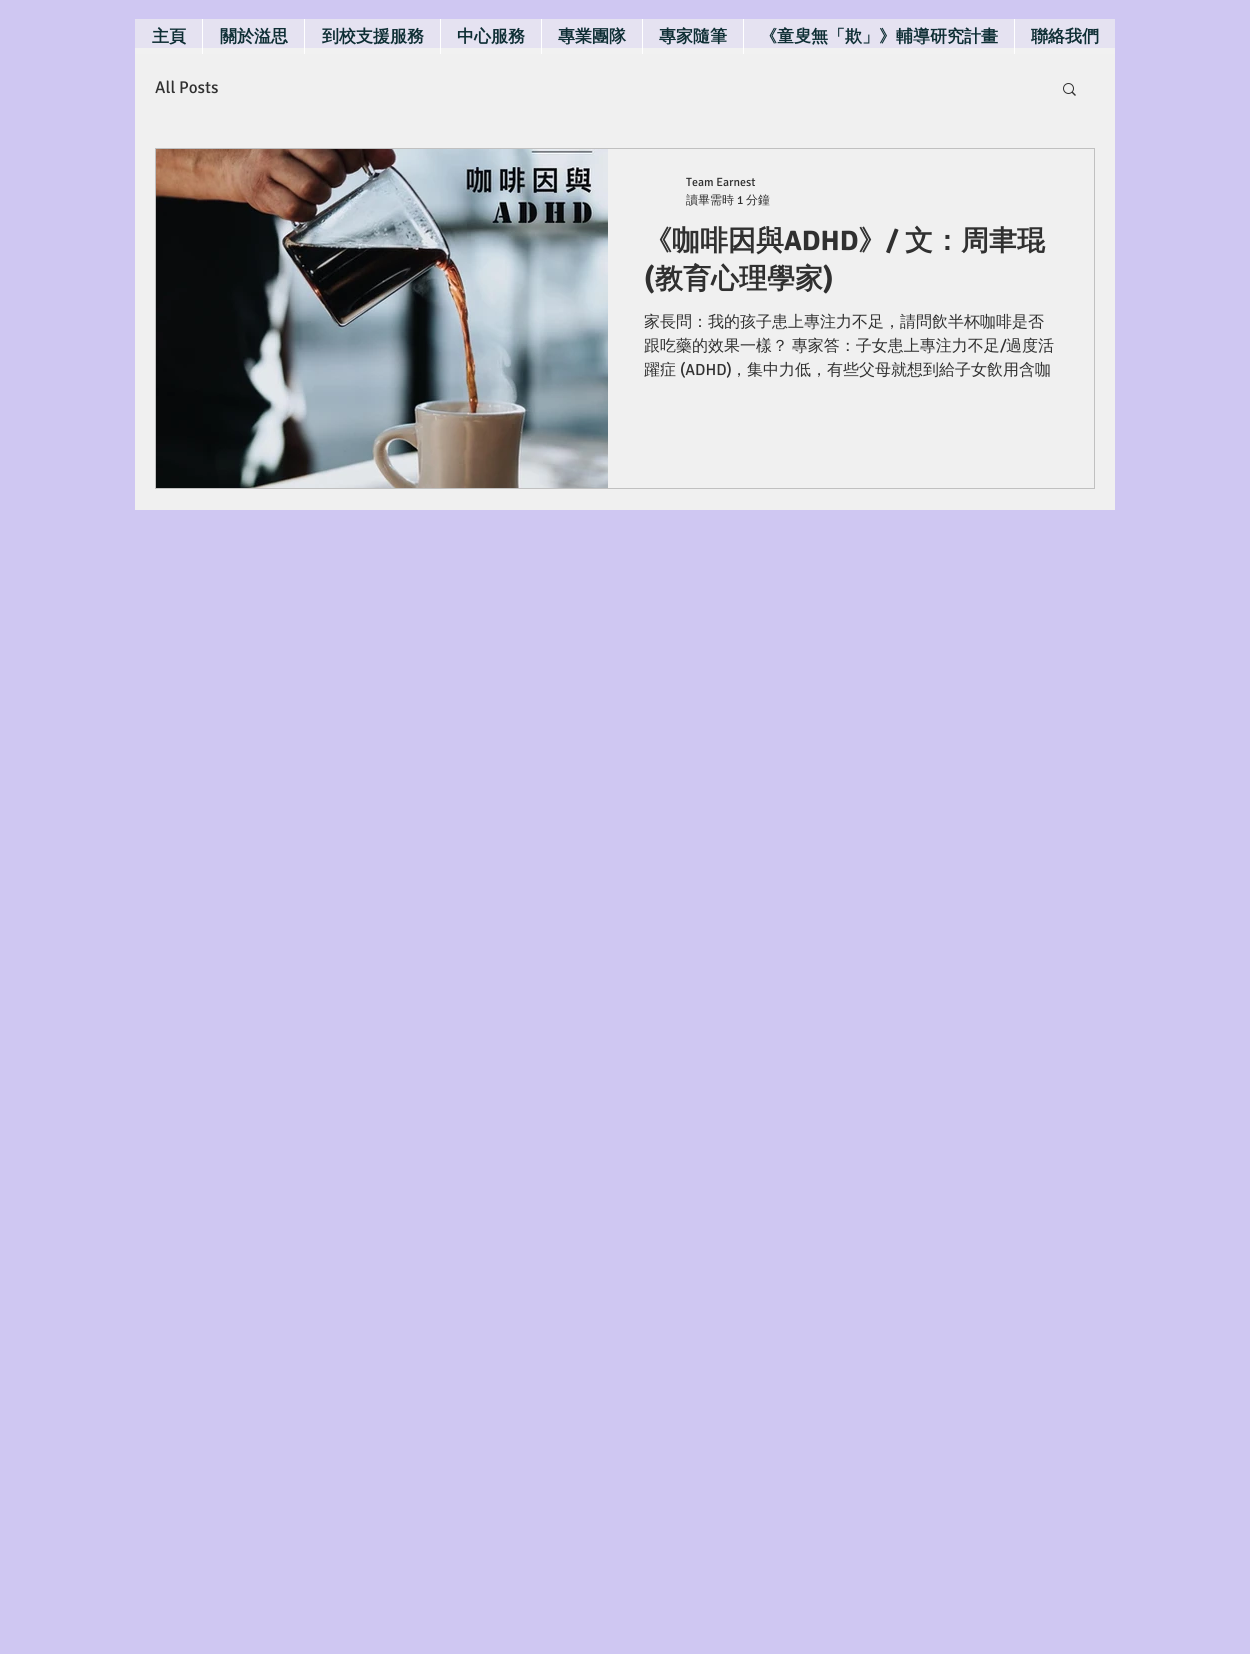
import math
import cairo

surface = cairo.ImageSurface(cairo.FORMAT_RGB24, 1250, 1654)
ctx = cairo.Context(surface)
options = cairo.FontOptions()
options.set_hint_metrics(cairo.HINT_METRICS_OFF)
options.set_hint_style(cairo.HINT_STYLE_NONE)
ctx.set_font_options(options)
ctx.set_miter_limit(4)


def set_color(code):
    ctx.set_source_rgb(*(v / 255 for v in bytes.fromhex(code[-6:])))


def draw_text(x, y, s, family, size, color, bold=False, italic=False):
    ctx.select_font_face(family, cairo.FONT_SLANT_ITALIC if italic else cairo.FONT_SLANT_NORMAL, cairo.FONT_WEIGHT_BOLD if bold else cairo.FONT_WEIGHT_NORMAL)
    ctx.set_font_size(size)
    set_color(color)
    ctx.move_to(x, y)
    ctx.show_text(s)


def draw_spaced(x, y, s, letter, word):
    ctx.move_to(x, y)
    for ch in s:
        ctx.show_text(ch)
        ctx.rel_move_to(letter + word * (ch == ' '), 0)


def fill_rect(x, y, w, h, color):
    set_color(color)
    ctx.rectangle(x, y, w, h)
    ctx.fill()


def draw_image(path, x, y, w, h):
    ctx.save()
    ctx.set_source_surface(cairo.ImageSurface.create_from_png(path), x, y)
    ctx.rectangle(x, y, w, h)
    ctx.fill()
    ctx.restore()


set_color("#cfc7f2")
ctx.paint()
fill_rect(135, 19, 980, 29, "#e5e2f1")
draw_text(152, 42, "主頁", "WenQuanYi Zen Hei", 17, "#0e2e34", bold=True)
fill_rect(135, 48, 980, 6, "#f1f1f1")
fill_rect(202, 19, 1, 35, "#ffffff")
draw_text(220, 42, "關於溢思", "WenQuanYi Zen Hei", 17, "#0e2e34", bold=True)
fill_rect(304, 19, 1, 35, "#ffffff")
draw_text(322, 42, "到校支援服務", "WenQuanYi Zen Hei", 17, "#0e2e34", bold=True)
fill_rect(440, 19, 1, 35, "#ffffff")
draw_text(457, 42, "中心服務", "WenQuanYi Zen Hei", 17, "#0e2e34", bold=True)
fill_rect(541, 19, 1, 35, "#ffffff")
draw_text(558, 42, "專業團隊", "WenQuanYi Zen Hei", 17, "#0e2e34", bold=True)
fill_rect(642, 19, 1, 35, "#ffffff")
draw_text(659, 42, "專家隨筆", "WenQuanYi Zen Hei", 17, "#0e2e34", bold=True)
fill_rect(743, 19, 1, 35, "#ffffff")
draw_text(760, 42, "《童叟無「欺」》輔導研究計畫", "WenQuanYi Zen Hei", 17, "#0e2e34", bold=True)
fill_rect(1014, 19, 1, 35, "#ffffff")
draw_text(1031, 42, "聯絡我們", "WenQuanYi Zen Hei", 17, "#0e2e34", bold=True)
fill_rect(135, 54, 980, 456, "#f0f0f0")
draw_text(155, 93, "All Posts", "Signika", 17, "#303030")
draw_image("assets/img1.png", 1063, 83, 13, 13)
ctx.rectangle(155.5, 148.5, 939, 340)
set_color("#c0c0c0")
ctx.set_line_width(1)
ctx.stroke()
draw_image("assets/img2.png", 156, 149, 452, 339)
draw_text(686, 186, "Team Earnest", "Signika", 12, "#303030")
draw_text(686, 204, "讀畢需時", "WenQuanYi Zen Hei Medium", 12, "#303030")
draw_text(737, 204, "1", "Signika", 12, "#303030")
draw_text(746, 204, "分鐘", "WenQuanYi Zen Hei Medium", 12, "#303030")
draw_text(644, 250, "《咖啡因與", "WenQuanYi Zen Hei", 28, "#303030", bold=True)
draw_text(784, 250, "ADHD", "Signika", 28, "#303030", bold=True)
draw_text(858, 250, "》", "WenQuanYi Zen Hei", 28, "#303030", bold=True)
draw_text(886, 250, "/", "Signika", 28, "#303030", bold=True)
draw_text(905, 250, "文：周聿琨", "WenQuanYi Zen Hei", 28, "#303030", bold=True)
draw_text(644, 288, "(", "Signika", 28, "#303030", bold=True)
draw_text(655, 288, "教育心理學家", "WenQuanYi Zen Hei", 28, "#303030", bold=True)
draw_text(823, 288, ")", "Signika", 28, "#303030", bold=True)
draw_text(644, 327, "家長問：我的孩子患上專注力不足，請問飲半杯咖啡是否", "WenQuanYi Zen Hei Medium", 16, "#303030")
draw_spaced(644, 351, "跟吃藥的效果一樣？ 專家答：子女患上專注力不足", 0, -1)
draw_text(1000, 351, "/", "Signika", 16, "#303030")
draw_text(1006, 351, "過度活", "WenQuanYi Zen Hei Medium", 16, "#303030")
draw_text(644, 375, "躍症", "WenQuanYi Zen Hei Medium", 16, "#303030")
draw_text(680, 375, "(ADHD)", "Signika", 16, "#303030")
draw_text(731, 375, "，集中力低，有些父母就想到給子女飲用含咖", "WenQuanYi Zen Hei Medium", 16, "#303030")
surface.write_to_png("output.png")
